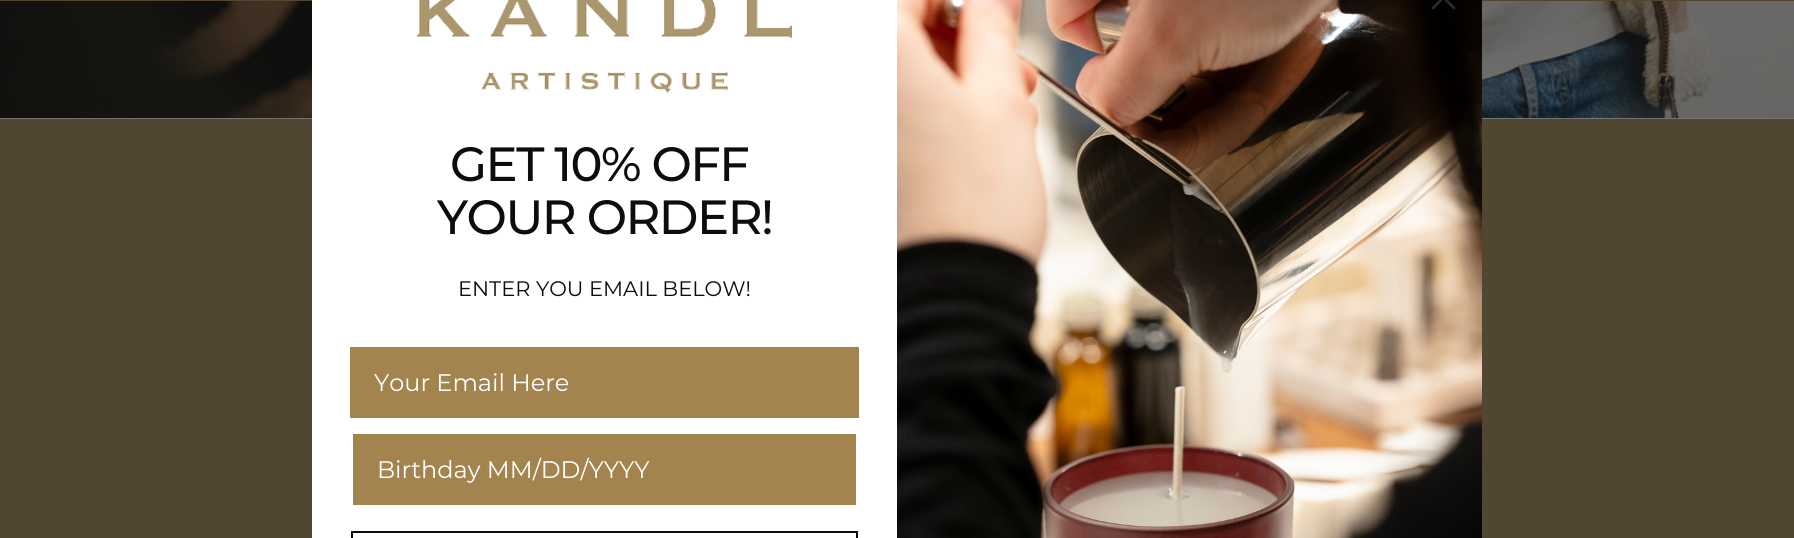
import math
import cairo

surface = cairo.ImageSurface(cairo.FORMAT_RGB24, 1794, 538)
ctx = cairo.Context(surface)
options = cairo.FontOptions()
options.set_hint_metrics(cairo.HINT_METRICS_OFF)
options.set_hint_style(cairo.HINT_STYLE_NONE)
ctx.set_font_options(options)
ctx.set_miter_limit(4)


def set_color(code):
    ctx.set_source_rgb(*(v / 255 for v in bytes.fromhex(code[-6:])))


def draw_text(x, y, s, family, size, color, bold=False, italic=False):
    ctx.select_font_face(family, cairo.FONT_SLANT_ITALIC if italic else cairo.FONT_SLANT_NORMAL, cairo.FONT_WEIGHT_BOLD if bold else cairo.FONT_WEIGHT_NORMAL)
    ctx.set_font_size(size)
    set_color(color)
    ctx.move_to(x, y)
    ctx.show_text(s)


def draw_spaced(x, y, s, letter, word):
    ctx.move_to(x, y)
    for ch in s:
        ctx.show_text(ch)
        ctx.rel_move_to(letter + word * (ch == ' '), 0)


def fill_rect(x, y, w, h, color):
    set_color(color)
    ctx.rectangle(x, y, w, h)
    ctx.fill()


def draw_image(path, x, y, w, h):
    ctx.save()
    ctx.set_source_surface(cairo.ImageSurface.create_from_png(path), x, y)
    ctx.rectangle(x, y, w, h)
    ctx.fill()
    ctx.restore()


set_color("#727272")
ctx.paint()
fill_rect(0, 0, 1794, 1, "#53452d")
draw_image("assets/img1.png", 0, 1, 312, 117)
draw_image("assets/img2.png", 1482, 1, 312, 117)
fill_rect(0, 119, 1794, 419, "#514631")
draw_image("assets/img4.png", 897, 0, 585, 538)
ctx.new_path()
ctx.move_to(1433, -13)
ctx.line_to(1454, 8)
ctx.move_to(1433, 8)
ctx.line_to(1454, -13)
ctx.close_path()
ctx.set_source_rgba(0.216, 0.247, 0.278, 0.7)
ctx.set_line_width(2.6)
ctx.set_line_cap(cairo.LINE_CAP_ROUND)
ctx.set_line_join(cairo.LINE_JOIN_ROUND)
ctx.stroke()
fill_rect(312, 0, 585, 538, "#ffffff")
draw_image("assets/img3.png", 417, 0, 375, 93)
ctx.select_font_face("Montserrat Medium")
ctx.set_font_size(48)
set_color("#0f0c0c")
draw_spaced(450, 181, "GET 10% OFF", -1.5, 0)
draw_spaced(437, 234, "YOUR ORDER!", -1.5, 0)
draw_text(458, 296, "ENTER YOU EMAIL BELOW!", "Montserrat", 21, "#0f0c0c")
fill_rect(350, 347, 509, 71, "#a3844f")
draw_text(374, 391, "Your Email Here", "Montserrat", 24, "#ffffff")
fill_rect(353, 434, 503, 71, "#a3844f")
draw_text(377, 478, "Birthday MM/DD/YYYY", "Montserrat", 24, "#ffffff")
ctx.rectangle(352, 532, 505, 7)
set_color("#110a0a")
ctx.set_line_width(2)
ctx.set_line_cap(cairo.LINE_CAP_BUTT)
ctx.set_line_join(cairo.LINE_JOIN_MITER)
ctx.stroke()
surface.write_to_png("output.png")
